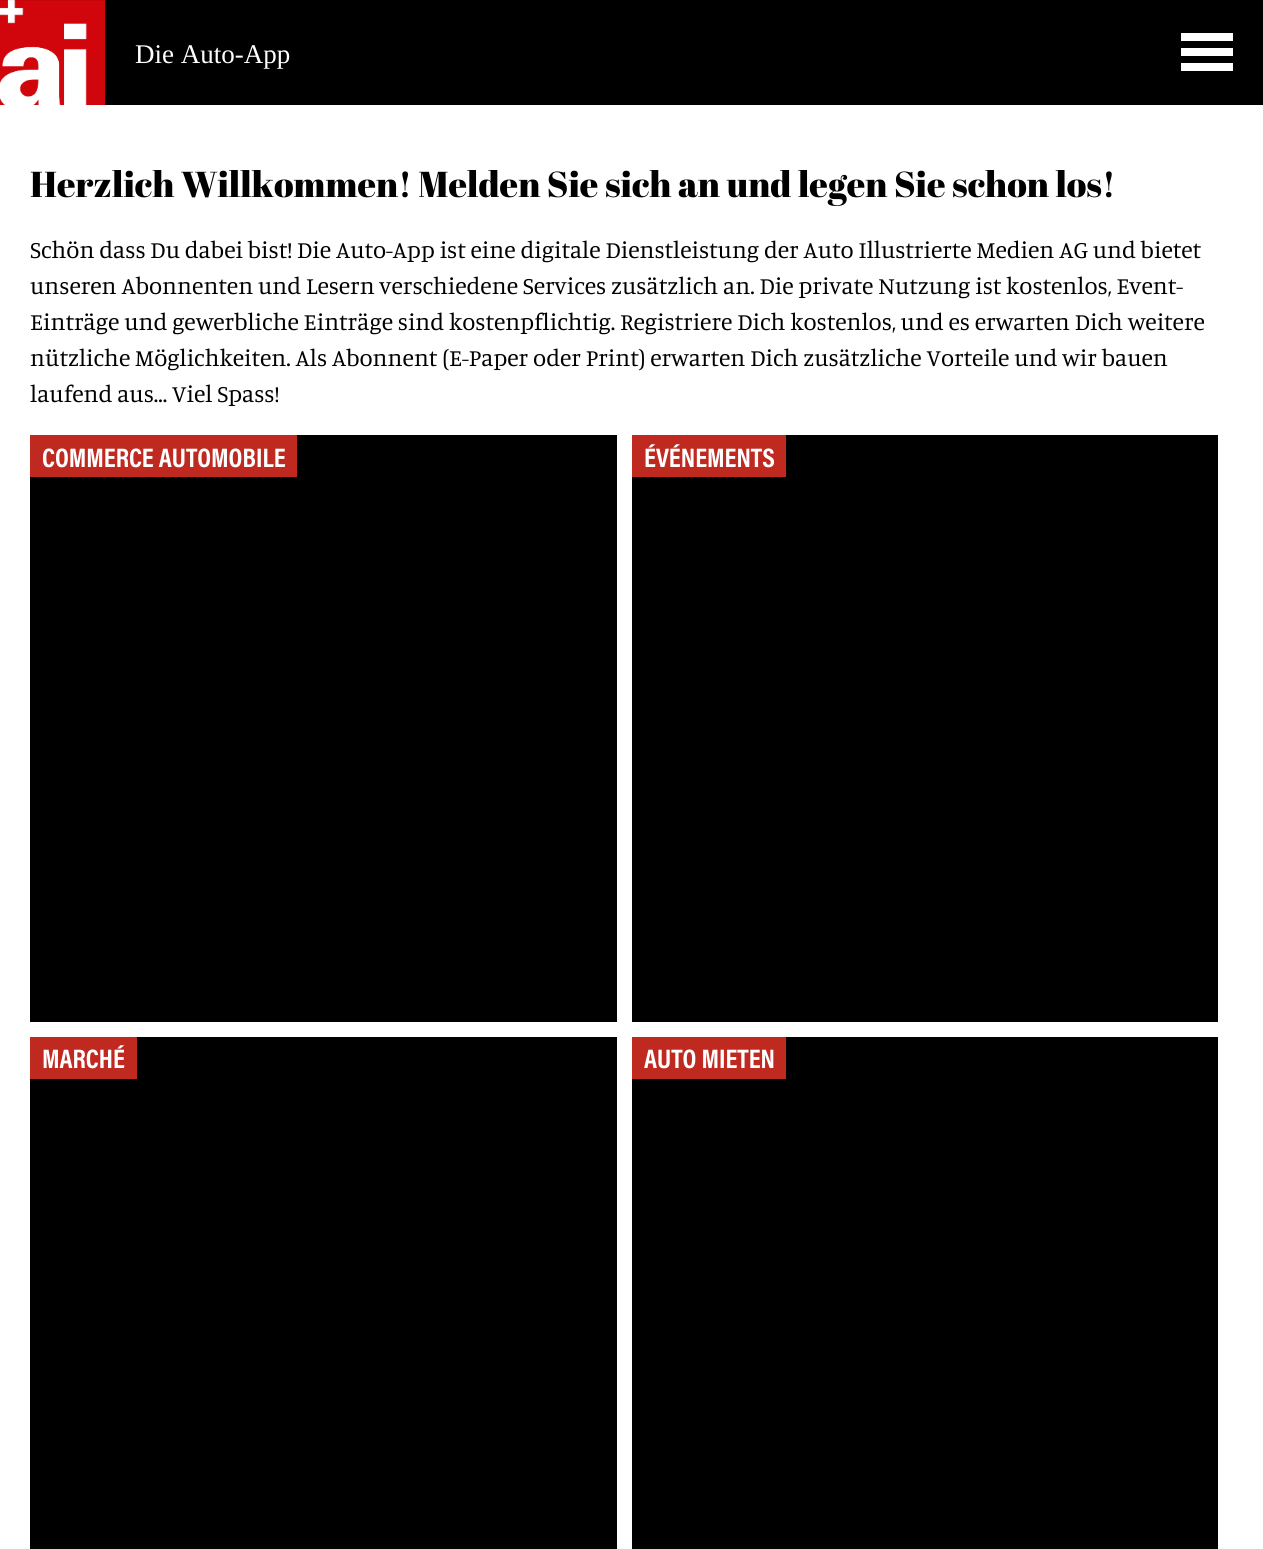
import math
import cairo

surface = cairo.ImageSurface(cairo.FORMAT_RGB24, 1263, 1549)
ctx = cairo.Context(surface)
options = cairo.FontOptions()
options.set_hint_metrics(cairo.HINT_METRICS_OFF)
options.set_hint_style(cairo.HINT_STYLE_NONE)
ctx.set_font_options(options)
ctx.set_miter_limit(4)


def set_color(code):
    ctx.set_source_rgb(*(v / 255 for v in bytes.fromhex(code[-6:])))


def draw_text(x, y, s, family, size, color, bold=False, italic=False):
    ctx.select_font_face(family, cairo.FONT_SLANT_ITALIC if italic else cairo.FONT_SLANT_NORMAL, cairo.FONT_WEIGHT_BOLD if bold else cairo.FONT_WEIGHT_NORMAL)
    ctx.set_font_size(size)
    set_color(color)
    ctx.move_to(x, y)
    ctx.show_text(s)


def fill_rect(x, y, w, h, color):
    set_color(color)
    ctx.rectangle(x, y, w, h)
    ctx.fill()


def draw_image(path, x, y, w, h):
    ctx.save()
    ctx.set_source_surface(cairo.ImageSurface.create_from_png(path), x, y)
    ctx.rectangle(x, y, w, h)
    ctx.fill()
    ctx.restore()


set_color("#ffffff")
ctx.paint()
fill_rect(0, 0, 1263, 105, "#000000")
draw_image("assets/img1.png", 0, 0, 105, 105)
draw_text(135, 63, "Die Auto-App", "Liberation Serif", 27, "#ffffff")
fill_rect(1181, 33, 52, 8, "#ffffff")
fill_rect(1181, 48, 52, 8, "#ffffff")
fill_rect(1181, 63, 52, 8, "#ffffff")
draw_text(30, 197, "Herzlich Willkommen! Melden Sie sich an und legen Sie schon los!", "Abril Fatface", 36, "#000000")
draw_text(30, 258, "Schön dass Du dabei bist! Die Auto-App ist eine digitale Dienstleistung der Auto Illustrierte Medien AG und bietet", "Manuale", 24, "#000000")
draw_text(30, 294, "unseren Abonnenten und Lesern verschiedene Services zusätzlich an. Die private Nutzung ist kostenlos, Event-", "Manuale", 24, "#000000")
draw_text(30, 330, "Einträge und gewerbliche Einträge sind kostenpflichtig. Registriere Dich kostenlos, und es erwarten Dich weitere", "Manuale", 24, "#000000")
draw_text(30, 366, "nützliche Möglichkeiten. Als Abonnent (E-Paper oder Print) erwarten Dich zusätzliche Vorteile und wir bauen", "Manuale", 24, "#000000")
draw_text(30, 402, "laufend aus... Viel Spass!", "Manuale", 24, "#000000")
fill_rect(30, 435, 587, 587, "#000000")
fill_rect(30, 435, 267, 42, "#c02920")
draw_text(42, 467, "COMMERCE AUTOMOBILE", "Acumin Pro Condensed", 27, "#ffffff", bold=True)
fill_rect(632, 435, 586, 587, "#000000")
fill_rect(632, 435, 154, 42, "#c02920")
draw_text(644, 467, "ÉVÉNEMENTS", "Acumin Pro Condensed", 27, "#ffffff", bold=True)
fill_rect(30, 1037, 587, 512, "#000000")
fill_rect(30, 1037, 107, 42, "#c02920")
draw_text(42, 1068, "MARCHÉ", "Acumin Pro Condensed", 27, "#ffffff", bold=True)
fill_rect(632, 1037, 586, 512, "#000000")
fill_rect(632, 1037, 154, 42, "#c02920")
draw_text(644, 1068, "AUTO MIETEN", "Acumin Pro Condensed", 27, "#ffffff", bold=True)
surface.write_to_png("output.png")
